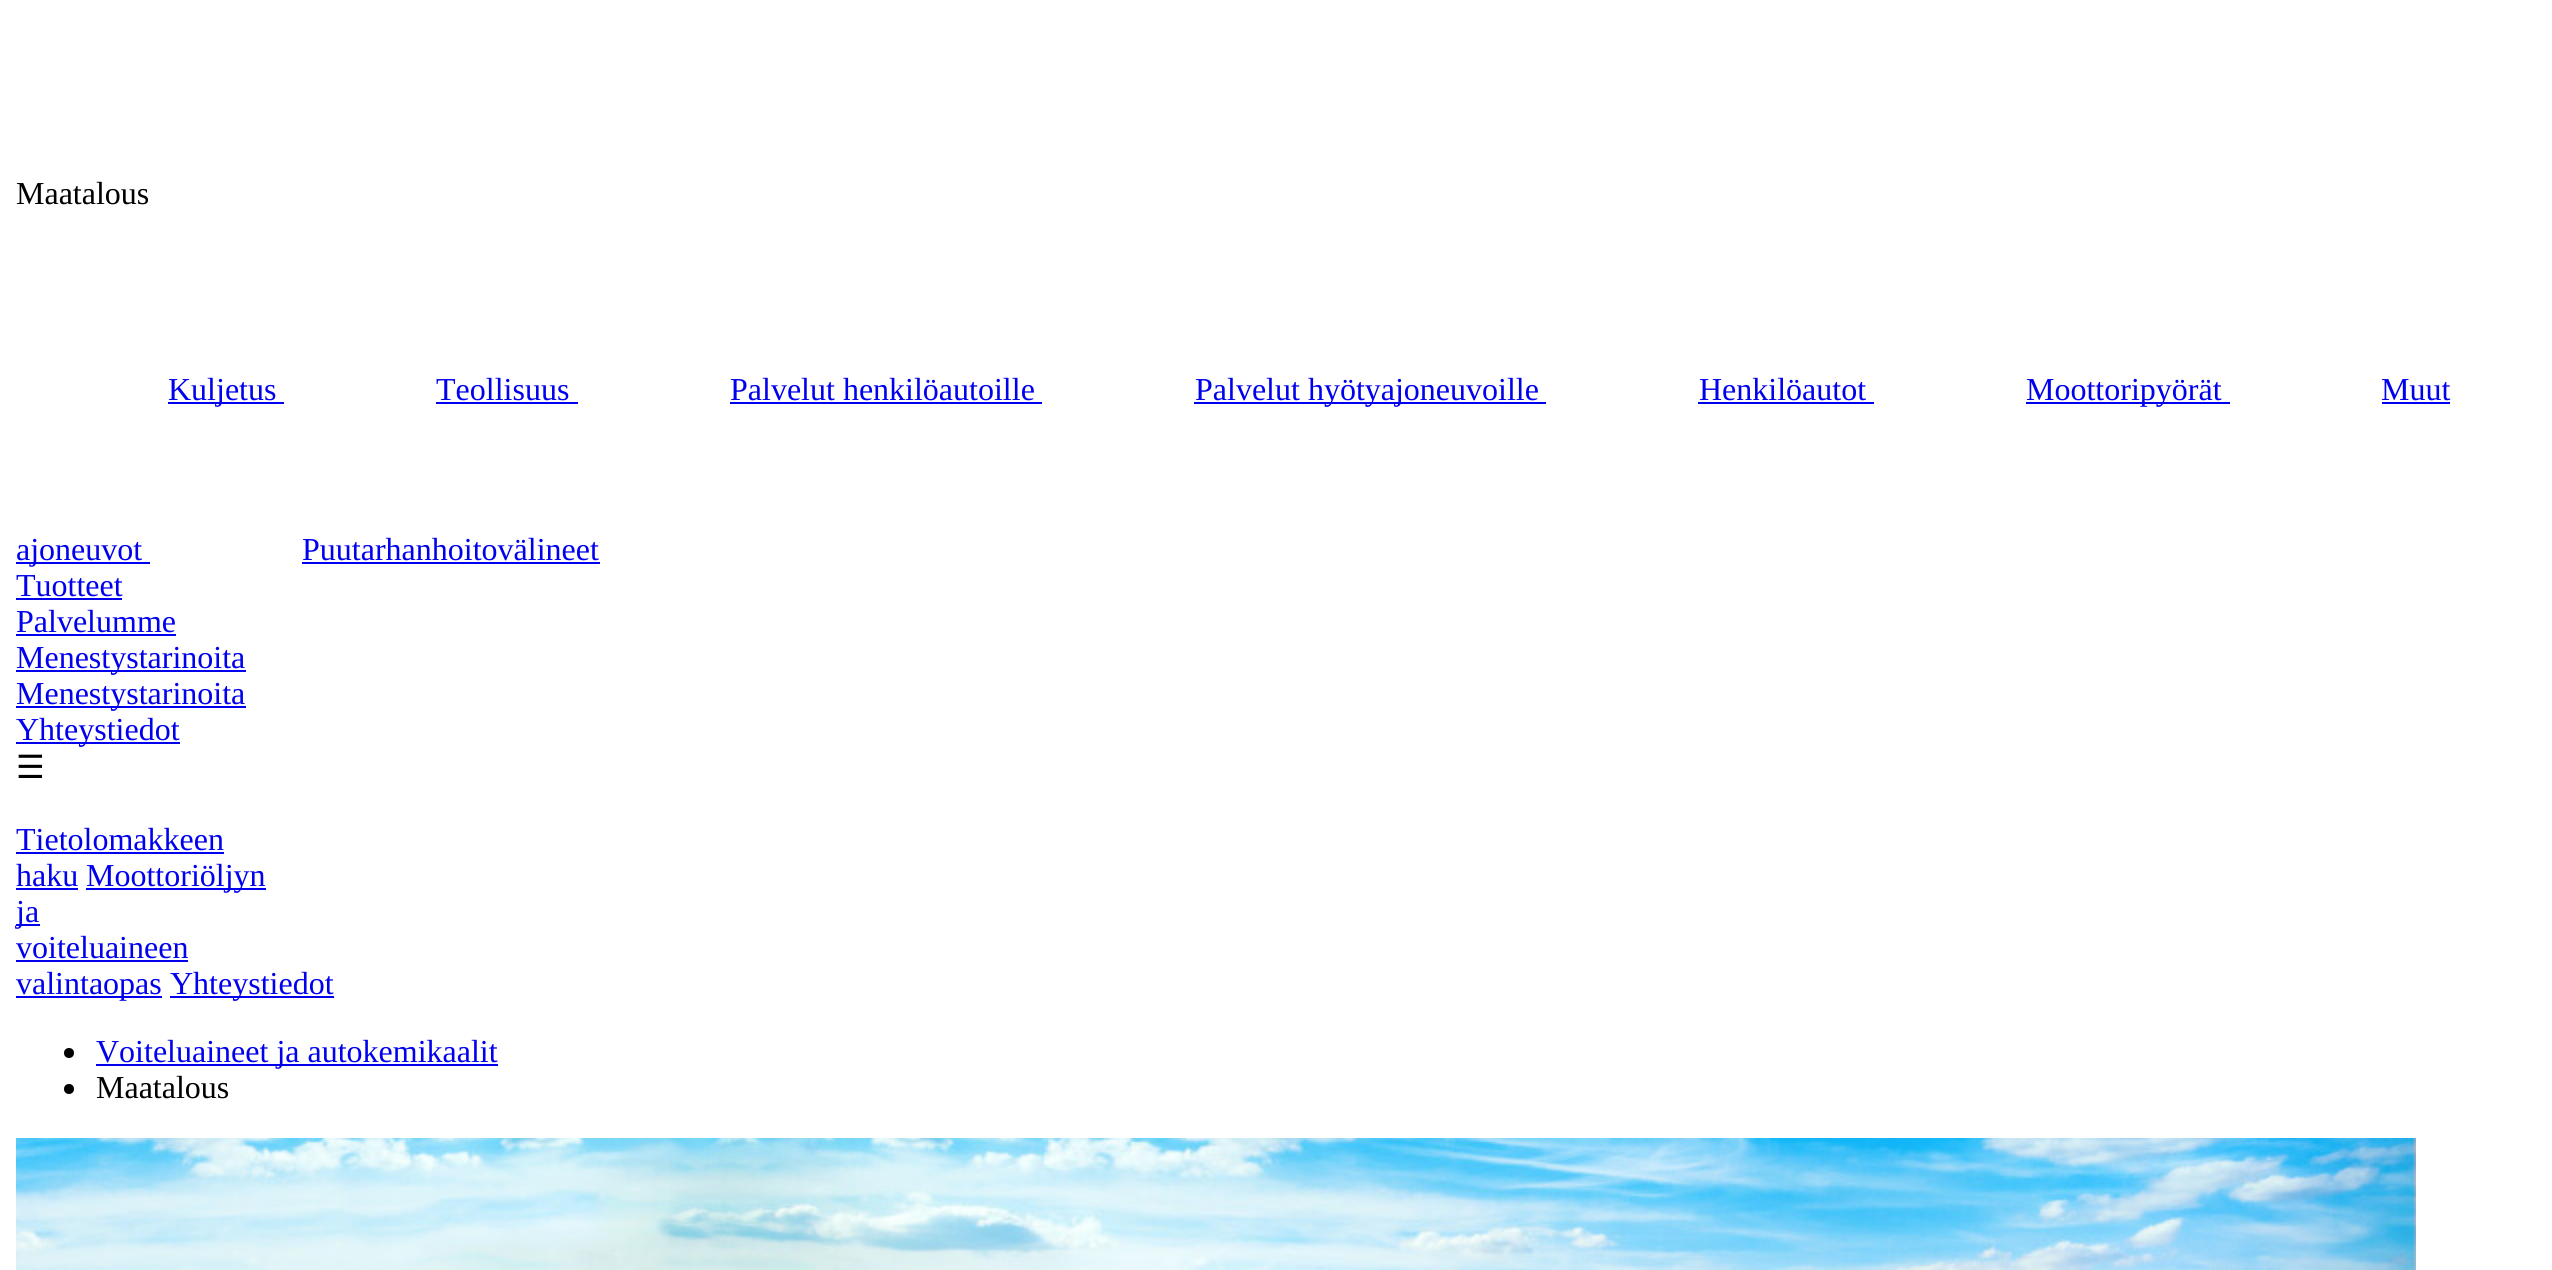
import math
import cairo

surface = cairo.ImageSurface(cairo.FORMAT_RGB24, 2552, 1270)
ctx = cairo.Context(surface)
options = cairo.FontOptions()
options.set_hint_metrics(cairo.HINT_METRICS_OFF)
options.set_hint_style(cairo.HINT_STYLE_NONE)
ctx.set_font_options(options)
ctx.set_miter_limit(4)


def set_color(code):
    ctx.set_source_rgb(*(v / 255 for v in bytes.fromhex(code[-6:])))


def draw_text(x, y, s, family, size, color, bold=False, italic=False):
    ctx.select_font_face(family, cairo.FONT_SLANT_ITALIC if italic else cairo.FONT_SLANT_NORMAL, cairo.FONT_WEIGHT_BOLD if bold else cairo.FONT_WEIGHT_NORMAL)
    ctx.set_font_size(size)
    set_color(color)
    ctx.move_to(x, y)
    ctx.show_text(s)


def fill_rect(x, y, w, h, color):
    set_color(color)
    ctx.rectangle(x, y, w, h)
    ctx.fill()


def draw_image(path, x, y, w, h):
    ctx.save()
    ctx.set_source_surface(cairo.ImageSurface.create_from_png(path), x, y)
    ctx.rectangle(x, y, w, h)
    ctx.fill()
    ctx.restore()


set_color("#ffffff")
ctx.paint()
draw_text(16, 204, "Maatalous", "Liberation Serif", 32, "#000000")
fill_rect(168, 402, 116, 2, "#0000ee")
draw_text(168, 400, "Kuljetus", "Liberation Serif", 32, "#0000ee")
draw_text(436, 400, "Teollisuus", "Liberation Serif", 32, "#0000ee")
fill_rect(436, 402, 142, 2, "#0000ee")
draw_text(730, 400, "Palvelut henkilöautoille", "Liberation Serif", 32, "#0000ee")
fill_rect(730, 402, 312, 2, "#0000ee")
fill_rect(1194, 402, 352, 2, "#0000ee")
draw_text(1195, 400, "Palvelut hyötyajoneuvoille", "Liberation Serif", 32, "#0000ee")
draw_text(1699, 400, "Henkilöautot", "Liberation Serif", 32, "#0000ee")
fill_rect(1698, 402, 176, 2, "#0000ee")
fill_rect(2026, 402, 204, 2, "#0000ee")
draw_text(2026, 400, "Moottoripyörät", "Liberation Serif", 32, "#0000ee")
draw_text(2381, 400, "Muut", "Liberation Serif", 32, "#0000ee")
fill_rect(2382, 402, 68, 2, "#0000ee")
fill_rect(16, 562, 134, 2, "#0000ee")
draw_text(16, 560, "ajoneuvot", "Liberation Serif", 32, "#0000ee")
draw_text(302, 560, "Puutarhanhoitovälineet", "Liberation Serif", 32, "#0000ee")
fill_rect(302, 562, 298, 2, "#0000ee")
draw_text(16, 596, "Tuotteet", "Liberation Serif", 32, "#0000ee")
fill_rect(16, 598, 106, 2, "#0000ee")
draw_text(16, 632, "Palvelumme", "Liberation Serif", 32, "#0000ee")
fill_rect(16, 634, 160, 2, "#0000ee")
fill_rect(16, 670, 230, 2, "#0000ee")
draw_text(16, 668, "Menestystarinoita", "Liberation Serif", 32, "#0000ee")
fill_rect(16, 706, 230, 2, "#0000ee")
draw_text(16, 704, "Menestystarinoita", "Liberation Serif", 32, "#0000ee")
fill_rect(16, 742, 164, 2, "#0000ee")
draw_text(16, 740, "Yhteystiedot", "Liberation Serif", 32, "#0000ee")
draw_text(16, 778, "☰", "DejaVu Sans", 32, "#000000")
draw_text(16, 850, "Tietolomakkeen", "Liberation Serif", 32, "#0000ee")
fill_rect(16, 852, 208, 2, "#0000ee")
draw_text(16, 886, "haku", "Liberation Serif", 32, "#0000ee")
fill_rect(16, 888, 62, 2, "#0000ee")
fill_rect(86, 888, 180, 2, "#0000ee")
draw_text(86, 886, "Moottoriöljyn", "Liberation Serif", 32, "#0000ee")
fill_rect(16, 924, 24, 2, "#0000ee")
draw_text(16, 922, "ja", "Liberation Serif", 32, "#0000ee")
draw_text(16, 958, "voiteluaineen", "Liberation Serif", 32, "#0000ee")
fill_rect(16, 960, 172, 2, "#0000ee")
fill_rect(16, 996, 146, 2, "#0000ee")
draw_text(16, 994, "valintaopas", "Liberation Serif", 32, "#0000ee")
fill_rect(170, 996, 164, 2, "#0000ee")
draw_text(170, 994, "Yhteystiedot", "Liberation Serif", 32, "#0000ee")
set_color("#000000")
ctx.new_path()
ctx.arc(69, 1053, 5, 0, 2 * math.pi)
ctx.fill()
fill_rect(96, 1064, 402, 2, "#0000ee")
draw_text(96, 1062, "Voiteluaineet ja autokemikaalit", "Liberation Serif", 32, "#0000ee")
set_color("#000000")
ctx.new_path()
ctx.arc(69, 1089, 5, 0, 2 * math.pi)
ctx.fill()
draw_text(96, 1098, "Maatalous", "Liberation Serif", 32, "#000000")
draw_image("assets/img1.png", 16, 1138, 2400, 132)
surface.write_to_png("output.png")
